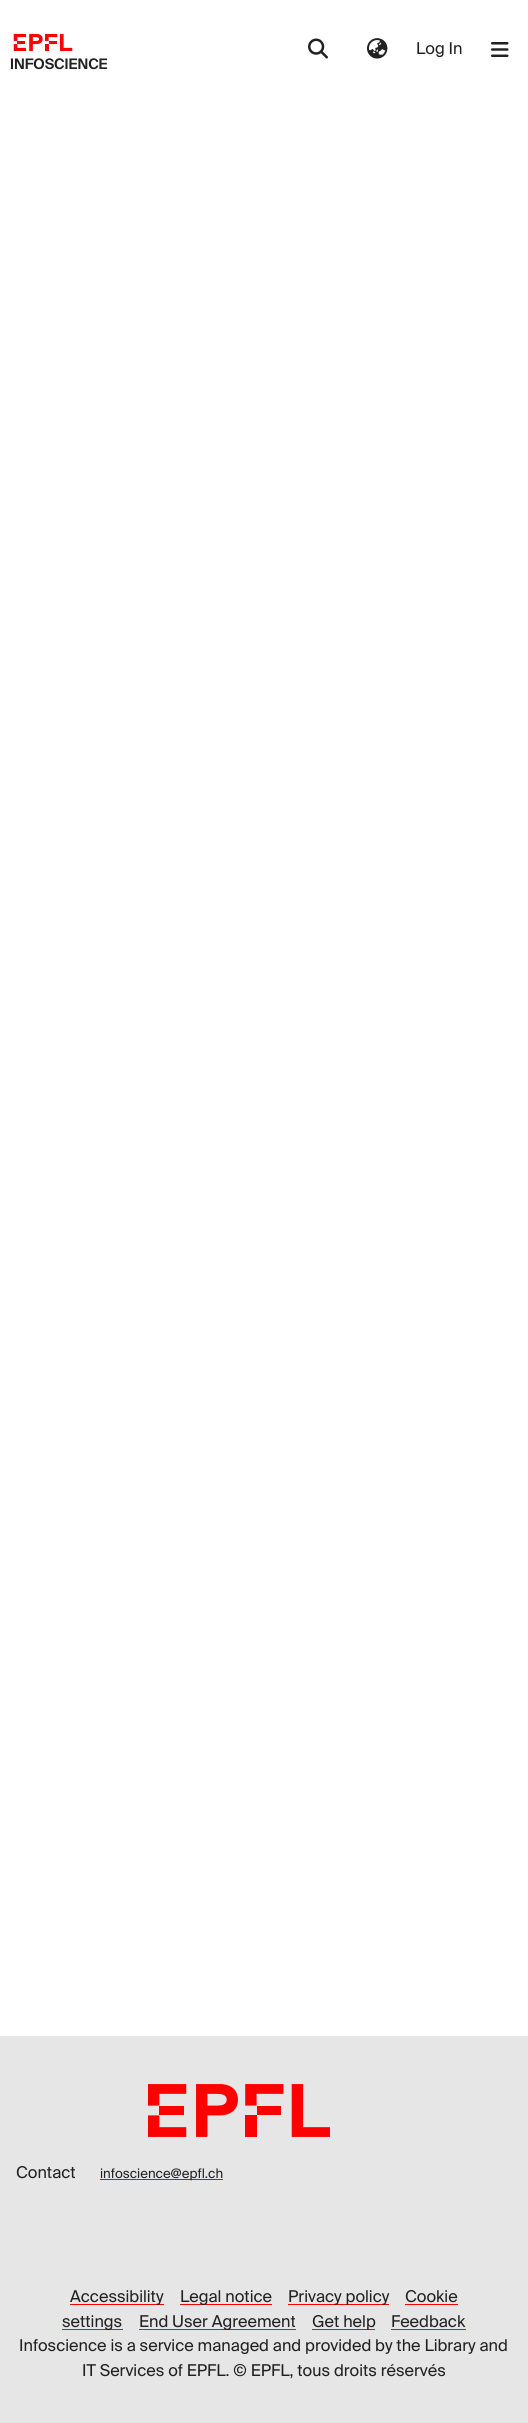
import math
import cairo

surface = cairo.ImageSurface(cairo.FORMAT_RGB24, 528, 2423)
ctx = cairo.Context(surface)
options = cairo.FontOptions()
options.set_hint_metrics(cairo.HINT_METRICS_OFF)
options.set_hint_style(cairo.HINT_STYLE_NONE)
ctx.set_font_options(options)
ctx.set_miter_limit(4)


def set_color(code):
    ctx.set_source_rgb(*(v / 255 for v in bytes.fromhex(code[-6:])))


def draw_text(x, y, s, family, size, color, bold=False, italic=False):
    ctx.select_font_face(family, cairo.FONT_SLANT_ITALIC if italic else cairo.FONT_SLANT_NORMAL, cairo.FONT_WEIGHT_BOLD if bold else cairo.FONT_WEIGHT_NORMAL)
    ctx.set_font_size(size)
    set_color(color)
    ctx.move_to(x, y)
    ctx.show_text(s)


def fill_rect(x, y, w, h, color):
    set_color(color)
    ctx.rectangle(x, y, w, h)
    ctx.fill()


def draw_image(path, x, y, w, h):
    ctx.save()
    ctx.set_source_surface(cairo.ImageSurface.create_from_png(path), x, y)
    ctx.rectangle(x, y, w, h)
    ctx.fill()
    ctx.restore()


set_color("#ffffff")
ctx.paint()
draw_image("assets/img1.png", 308, 38, 20, 21)
draw_image("assets/img2.png", 367, 38, 21, 21)
draw_text(416, 54, "Log In", "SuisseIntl", 16.3, "#212121")
draw_image("assets/img3.png", 491, 42, 18, 15)
draw_image("assets/img4.png", 13, 34, 60, 17)
draw_text(10, 69, "INFOSCIENCE", "SuisseIntl SemiBold", 14.5, "#212121")
fill_rect(0, 2036, 528, 387, "#e6e6e6")
draw_image("assets/img5.png", 148, 2084, 182, 53)
draw_text(16, 2178, "Contact", "SuisseIntl", 16.3, "#212121")
fill_rect(100, 2179, 123, 1, "#ff0000")
draw_text(100, 2178, "infoscience@epfl.ch", "SuisseIntl", 13.25, "#212121")
fill_rect(70, 2304, 94, 1, "#ff0000")
draw_text(70, 2302, "Accessibility", "SuisseIntl", 16.3, "#212121")
fill_rect(180, 2304, 92, 1, "#ff0000")
draw_text(180, 2302, "Legal notice", "SuisseIntl", 16.3, "#212121")
fill_rect(288, 2304, 101, 1, "#ff0000")
draw_text(288, 2302, "Privacy policy", "SuisseIntl", 16.3, "#212121")
draw_text(405, 2302, "Cookie", "SuisseIntl", 16.3, "#212121")
fill_rect(405, 2304, 53, 1, "#ff0000")
fill_rect(62, 2329, 61, 1, "#ff0000")
draw_text(62, 2327, "settings", "SuisseIntl", 16.3, "#212121")
fill_rect(139, 2329, 157, 1, "#ff0000")
draw_text(139, 2327, "End User Agreement", "SuisseIntl", 16.3, "#212121")
fill_rect(312, 2329, 63, 1, "#ff0000")
draw_text(312, 2327, "Get help", "SuisseIntl", 16.3, "#212121")
draw_text(391, 2327, "Feedback", "SuisseIntl", 16.3, "#212121")
fill_rect(391, 2329, 75, 1, "#ff0000")
draw_text(19, 2351, "Infoscience is a service managed and provided by the Library and", "SuisseIntl", 16.3, "#212121")
draw_text(82, 2376, "IT Services of EPFL. © EPFL, tous droits réservés", "SuisseIntl", 16.3, "#212121")
surface.write_to_png("output.png")
